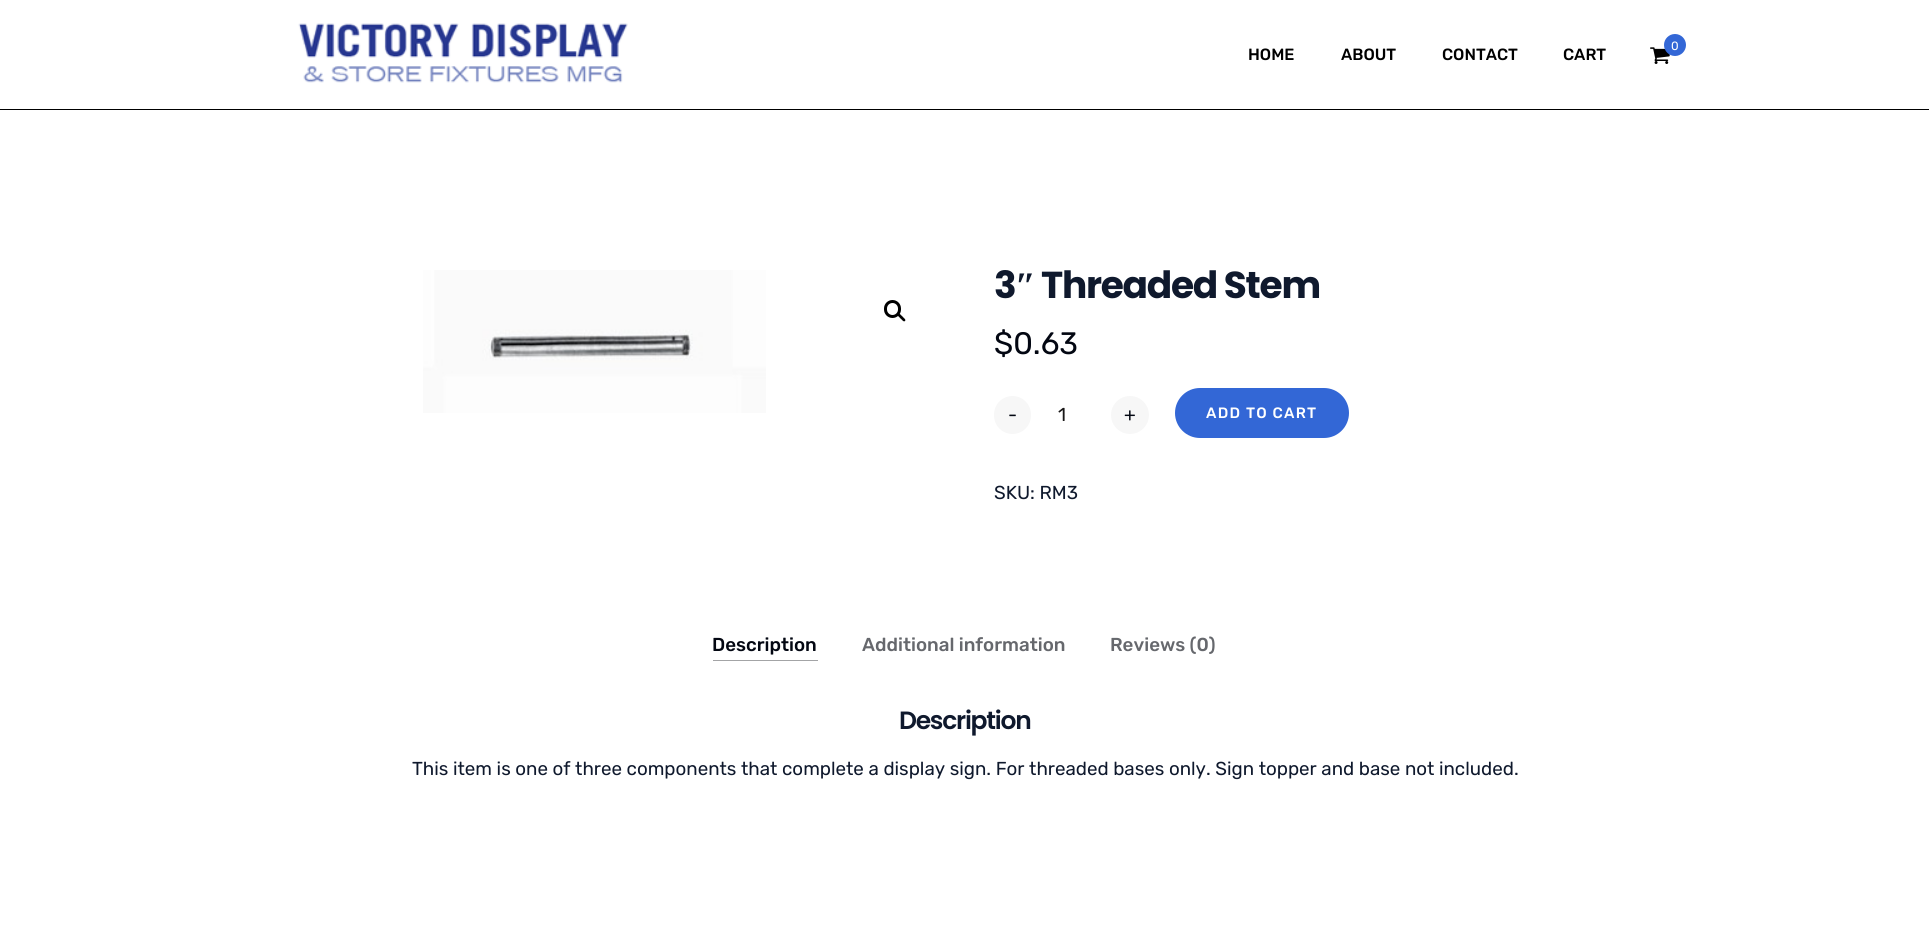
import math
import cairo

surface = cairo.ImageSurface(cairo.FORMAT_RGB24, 1929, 929)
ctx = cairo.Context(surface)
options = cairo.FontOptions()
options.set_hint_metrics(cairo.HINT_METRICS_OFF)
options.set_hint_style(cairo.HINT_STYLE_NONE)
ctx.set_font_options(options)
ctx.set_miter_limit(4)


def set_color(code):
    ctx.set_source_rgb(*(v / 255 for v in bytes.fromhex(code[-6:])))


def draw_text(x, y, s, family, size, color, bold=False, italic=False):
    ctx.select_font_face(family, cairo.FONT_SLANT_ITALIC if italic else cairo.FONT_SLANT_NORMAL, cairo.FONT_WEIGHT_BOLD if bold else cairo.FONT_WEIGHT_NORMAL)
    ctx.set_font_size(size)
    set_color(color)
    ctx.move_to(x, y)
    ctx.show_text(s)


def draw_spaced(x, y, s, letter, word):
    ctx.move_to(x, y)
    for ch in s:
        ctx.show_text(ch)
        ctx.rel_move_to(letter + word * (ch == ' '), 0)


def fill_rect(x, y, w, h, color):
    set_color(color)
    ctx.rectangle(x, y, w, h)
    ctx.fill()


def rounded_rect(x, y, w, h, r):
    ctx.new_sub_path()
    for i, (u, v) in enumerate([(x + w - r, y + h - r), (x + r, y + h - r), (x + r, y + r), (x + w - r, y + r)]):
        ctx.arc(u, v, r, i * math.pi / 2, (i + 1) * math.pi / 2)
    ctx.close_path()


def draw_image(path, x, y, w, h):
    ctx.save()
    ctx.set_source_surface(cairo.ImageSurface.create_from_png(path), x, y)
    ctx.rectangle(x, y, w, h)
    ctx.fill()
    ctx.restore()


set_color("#ffffff")
ctx.paint()
fill_rect(0, 109, 1929, 1, "#000000")
draw_image("assets/img1.png", 298, 23, 330, 60)
draw_image("assets/img2.png", 1650, 47, 20, 17)
set_color("#3367d6")
ctx.arc(1675, 45, 11, 0, 2 * math.pi)
ctx.fill()
draw_text(1671, 50, "0", "Rubik", 12, "#ffffff")
draw_text(1248, 60, "HOME", "Rubik Medium", 16.25, "#000000")
draw_text(1341, 60, "ABOUT", "Rubik Medium", 16.25, "#000000")
draw_text(1442, 60, "CONTACT", "Rubik Medium", 16.25, "#000000")
draw_text(1563, 60, "CART", "Rubik Medium", 16.25, "#000000")
draw_image("assets/img3.png", 423, 270, 343, 143)
rounded_rect(885.5, 301.5, 14, 15, 7)
ctx.set_line_width(3)
ctx.stroke()
ctx.new_path()
ctx.move_to(898, 314)
ctx.curve_to(899.5, 312.5, 901.5, 316, 902.5, 316.5)
ctx.curve_to(903, 317.5, 906.5, 319.5, 905, 321)
ctx.curve_to(903.5, 322.5, 901.5, 319, 900.5, 318.5)
ctx.curve_to(900, 317.5, 896.5, 315.5, 898, 314)
ctx.close_path()
ctx.fill()
ctx.select_font_face("Poppins", cairo.FONT_SLANT_NORMAL, cairo.FONT_WEIGHT_BOLD)
ctx.set_font_size(37.5)
set_color("#0f192d")
draw_spaced(994, 298, "3", -1.25, 0)
ctx.select_font_face("Liberation Serif", cairo.FONT_SLANT_NORMAL, cairo.FONT_WEIGHT_BOLD)
draw_spaced(1015, 298, "″", -1.25, 0)
ctx.select_font_face("Poppins", cairo.FONT_SLANT_NORMAL, cairo.FONT_WEIGHT_BOLD)
draw_spaced(1041, 298, "Threaded Stem", -1.25, 0)
draw_text(994, 354, "$0.63", "Rubik", 31, "#030712")
set_color("#f7f7f7")
rounded_rect(994, 396, 37, 38, 18.5)
ctx.fill()
draw_text(1008, 421, "-", "Rubik", 18.75, "#030712")
draw_text(1058, 421, "1", "Rubik", 18.75, "#191717")
set_color("#f7f7f7")
ctx.new_path()
ctx.arc(1130, 415, 19, 0, 2 * math.pi)
ctx.fill()
draw_text(1124, 421, "+", "Rubik", 18.75, "#030712")
set_color("#3367d6")
rounded_rect(1175, 388, 174, 50, 25)
ctx.fill()
ctx.select_font_face("Rubik Medium")
ctx.set_font_size(15)
set_color("#ffffff")
draw_spaced(1206, 418, "ADD TO CART", 1.25, 0)
draw_text(994, 499, "SKU: RM3", "Rubik", 18.75, "#0f192d")
draw_text(712, 651, "Description", "Rubik Medium", 18.75, "#030712")
fill_rect(713, 660, 105, 1, "#a3a4a6")
draw_text(862, 651, "Additional information", "Rubik Medium", 18.75, "#66686d")
draw_text(1110, 651, "Reviews (0)", "Rubik Medium", 18.75, "#66686d")
ctx.select_font_face("Poppins SemiBold")
ctx.set_font_size(25)
set_color("#0f192d")
draw_spaced(899, 729, "Description", -1.25, 0)
draw_text(412, 775, "This item is one of three components that complete a display sign. For threaded bases only. Sign topper and base not included.", "Rubik", 18.75, "#0f192d")
surface.write_to_png("output.png")
